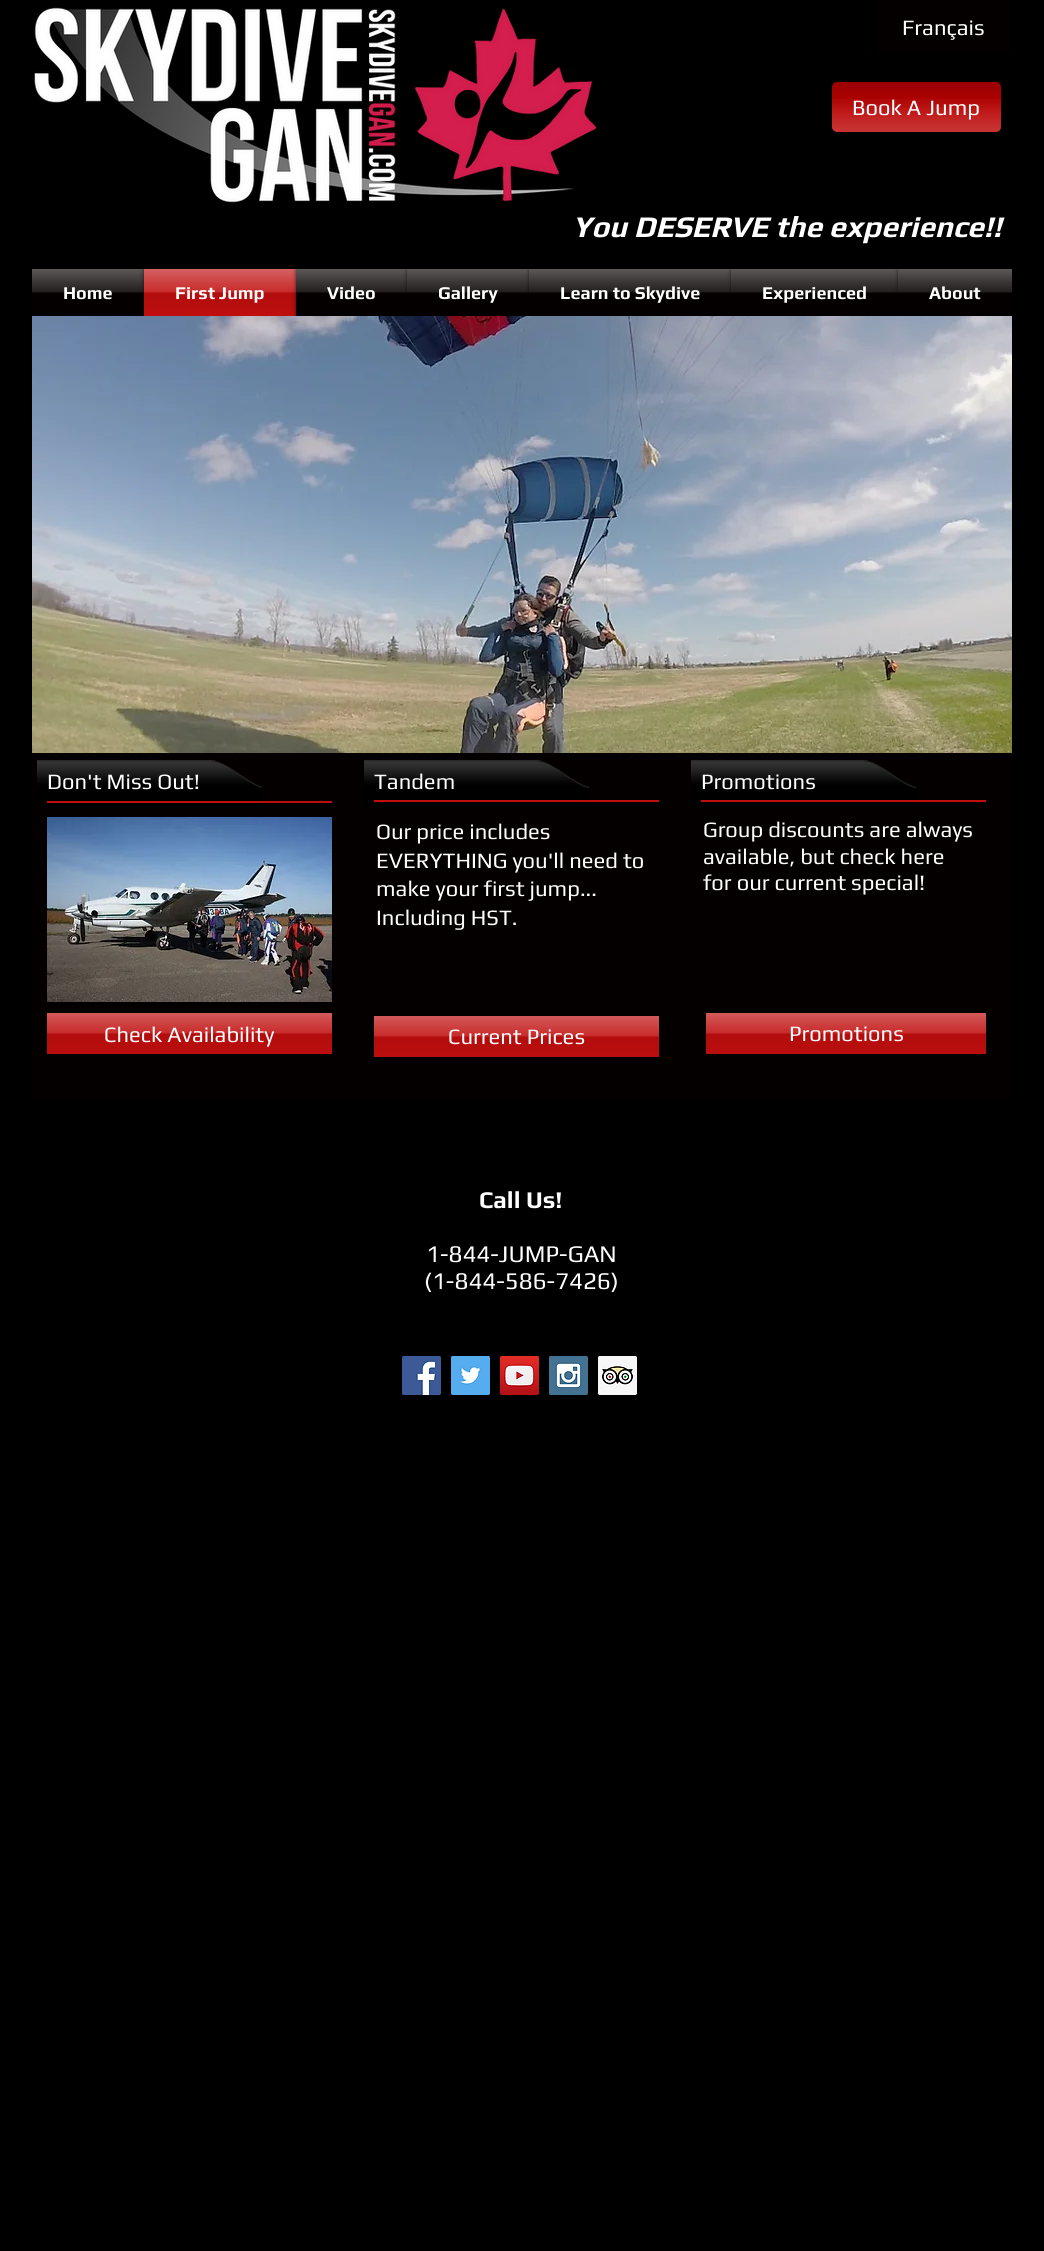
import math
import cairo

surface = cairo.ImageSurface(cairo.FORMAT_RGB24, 1044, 2251)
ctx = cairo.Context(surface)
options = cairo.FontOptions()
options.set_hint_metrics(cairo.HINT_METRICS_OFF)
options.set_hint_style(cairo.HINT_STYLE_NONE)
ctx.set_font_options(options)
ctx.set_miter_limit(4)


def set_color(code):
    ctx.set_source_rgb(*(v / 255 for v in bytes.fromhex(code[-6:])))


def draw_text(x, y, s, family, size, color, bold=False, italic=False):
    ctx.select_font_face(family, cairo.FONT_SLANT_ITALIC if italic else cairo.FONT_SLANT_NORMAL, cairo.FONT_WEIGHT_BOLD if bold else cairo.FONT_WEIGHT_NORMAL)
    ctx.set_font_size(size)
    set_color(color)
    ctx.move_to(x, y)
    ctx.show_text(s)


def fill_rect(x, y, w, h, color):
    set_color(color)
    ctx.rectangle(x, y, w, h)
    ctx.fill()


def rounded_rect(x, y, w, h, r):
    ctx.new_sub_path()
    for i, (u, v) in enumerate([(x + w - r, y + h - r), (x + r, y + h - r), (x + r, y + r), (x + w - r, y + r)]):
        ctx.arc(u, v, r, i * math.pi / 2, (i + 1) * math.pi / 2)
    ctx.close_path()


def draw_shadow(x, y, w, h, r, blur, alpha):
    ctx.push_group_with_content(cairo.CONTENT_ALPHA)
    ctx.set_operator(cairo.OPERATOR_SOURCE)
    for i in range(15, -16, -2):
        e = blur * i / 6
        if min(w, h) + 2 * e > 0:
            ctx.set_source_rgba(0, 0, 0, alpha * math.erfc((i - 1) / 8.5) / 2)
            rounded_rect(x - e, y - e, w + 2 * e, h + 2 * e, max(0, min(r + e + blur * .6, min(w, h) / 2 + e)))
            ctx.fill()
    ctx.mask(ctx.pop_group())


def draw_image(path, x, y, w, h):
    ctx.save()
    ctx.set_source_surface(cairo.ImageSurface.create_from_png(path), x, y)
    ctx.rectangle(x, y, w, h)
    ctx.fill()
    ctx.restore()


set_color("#000000")
ctx.paint()
draw_image("assets/img1.png", 34, 7, 562, 196)
fill_rect(877, 1, 133, 53, "#050000")
draw_text(902, 35, "Français", "Play", 22, "#ffffff")
set_color("#b90101")
rounded_rect(832, 82, 169, 50, 5)
ctx.fill()
draw_image("assets/img2.png", 832, 82, 169, 26)
draw_image("assets/img3.png", 832, 99, 169, 33)
draw_text(852, 115, "Book A Jump", "Play", 22, "#ffffff")
draw_text(572, 237, "You DESERVE the experience!!", "Play", 30, "#ffffff", bold=True, italic=True)
fill_rect(32, 269, 112, 47, "#050000")
draw_image("assets/img4.png", 32, 269, 112, 24)
draw_text(63, 299, "Home", "Play", 18, "#ffffff", bold=True)
set_color("#000000")
draw_shadow(144, 270, 152, 47, 0, 2, 0.6)
fill_rect(144, 269, 152, 47, "#c00e0e")
draw_image("assets/img5.png", 144, 269, 152, 44)
draw_text(175, 299, "First Jump", "Play", 18, "#ffffff", bold=True)
set_color("#000000")
draw_shadow(296, 270, 111, 47, 0, 2, 0.6)
fill_rect(296, 269, 111, 47, "#050000")
draw_image("assets/img6.png", 296, 269, 111, 24)
draw_text(327, 299, "Video", "Play", 18, "#ffffff", bold=True)
set_color("#000000")
draw_shadow(407, 270, 122, 47, 0, 2, 0.6)
fill_rect(407, 269, 122, 47, "#050000")
draw_image("assets/img7.png", 407, 269, 122, 24)
draw_text(438, 299, "Gallery", "Play", 18, "#ffffff", bold=True)
set_color("#000000")
draw_shadow(529, 270, 202, 47, 0, 2, 0.6)
fill_rect(529, 269, 202, 47, "#050000")
draw_image("assets/img8.png", 529, 269, 202, 24)
draw_text(560, 299, "Learn to Skydive", "Play", 18, "#ffffff", bold=True)
set_color("#000000")
draw_shadow(731, 270, 167, 47, 0, 2, 0.6)
fill_rect(731, 269, 167, 47, "#050000")
draw_image("assets/img9.png", 731, 269, 167, 24)
draw_text(762, 299, "Experienced", "Play", 18, "#ffffff", bold=True)
set_color("#000000")
draw_shadow(898, 270, 114, 47, 0, 2, 0.6)
fill_rect(898, 269, 114, 47, "#050000")
draw_image("assets/img10.png", 898, 269, 114, 24)
draw_text(929, 299, "About", "Play", 18, "#ffffff", bold=True)
fill_rect(32, 753, 980, 345, "#050000")
draw_image("assets/img11.png", 32, 316, 980, 437)
ctx.new_path()
ctx.move_to(37.5, 786.5)
ctx.line_to(339, 786.5)
ctx.curve_to(343, 786.5, 346.5, 790, 346.5, 794)
ctx.line_to(346.5, 1060)
ctx.curve_to(346.5, 1064, 343, 1067.5, 339, 1067.5)
ctx.line_to(45, 1067.5)
ctx.curve_to(41, 1067.5, 37.5, 1064, 37.5, 1060)
ctx.close_path()
set_color("#000000")
ctx.set_line_width(1)
ctx.stroke()
draw_image("assets/img12.png", 37, 760, 225, 49)
draw_text(47, 789, "Don't Miss Out!", "Play", 22, "#ffffff")
fill_rect(47, 801, 285, 2, "#c00e0e")
draw_image("assets/img13.png", 47, 817, 285, 185)
fill_rect(47, 1013, 285, 41, "#c00e0e")
draw_image("assets/img14.png", 47, 1013, 285, 41)
draw_text(104, 1042, "Check Availability", "Play", 22, "#ffffff")
ctx.new_path()
ctx.move_to(364.5, 786.5)
ctx.line_to(666, 786.5)
ctx.curve_to(670, 786.5, 673.5, 790, 673.5, 794)
ctx.line_to(673.5, 1063)
ctx.curve_to(673.5, 1067, 670, 1070.5, 666, 1070.5)
ctx.line_to(372, 1070.5)
ctx.curve_to(368, 1070.5, 364.5, 1067, 364.5, 1063)
ctx.close_path()
set_color("#000000")
ctx.stroke()
draw_image("assets/img15.png", 364, 760, 225, 48)
draw_text(374, 789, "Tandem", "Play", 22, "#ffffff")
fill_rect(374, 800, 285, 2, "#c00e0e")
draw_text(376, 839, "Our price includes", "Play", 22, "#ffffff")
draw_text(376, 868, "EVERYTHING you'll need to", "Play", 22, "#ffffff")
draw_text(376, 896, "make your first jump...", "Play", 22, "#ffffff")
draw_text(376, 925, "Including HST.", "Play", 22, "#ffffff")
fill_rect(374, 1016, 285, 41, "#c00e0e")
draw_image("assets/img14.png", 374, 1016, 285, 41)
draw_text(448, 1044, "Current Prices", "Play", 22, "#ffffff")
ctx.new_path()
ctx.move_to(691.5, 786.5)
ctx.line_to(993, 786.5)
ctx.curve_to(997, 786.5, 1000.5, 790, 1000.5, 794)
ctx.line_to(1000.5, 1087)
ctx.curve_to(1000.5, 1091, 997, 1094.5, 993, 1094.5)
ctx.line_to(699, 1094.5)
ctx.curve_to(695, 1094.5, 691.5, 1091, 691.5, 1087)
ctx.close_path()
set_color("#000000")
ctx.stroke()
draw_image("assets/img15.png", 691, 760, 225, 48)
draw_text(701, 789, "Promotions", "Play", 22, "#ffffff")
fill_rect(701, 800, 285, 2, "#c00e0e")
draw_text(703, 837, "Group discounts are always", "Play", 22, "#ffffff")
draw_text(703, 864, "available, but check here", "Play", 22, "#ffffff")
draw_text(703, 890, "for our current special!", "Play", 22, "#ffffff")
fill_rect(706, 1013, 280, 41, "#c00e0e")
draw_image("assets/img16.png", 706, 1013, 280, 41)
draw_text(789, 1041, "Promotions", "Play", 22, "#ffffff")
draw_text(479, 1208, "Call Us!", "Play", 24, "#ffffff", bold=True)
draw_text(426, 1262, "1-844-JUMP-GAN", "Play", 24, "#ffffff")
draw_text(424, 1289, "(1-844-586-7426)", "Play", 24, "#ffffff")
draw_image("assets/img17.png", 402, 1356, 39, 39)
draw_image("assets/img18.png", 451, 1356, 39, 39)
draw_image("assets/img19.png", 500, 1356, 39, 39)
draw_image("assets/img20.png", 549, 1356, 39, 39)
draw_image("assets/img21.png", 598, 1356, 39, 39)
surface.write_to_png("output.png")
